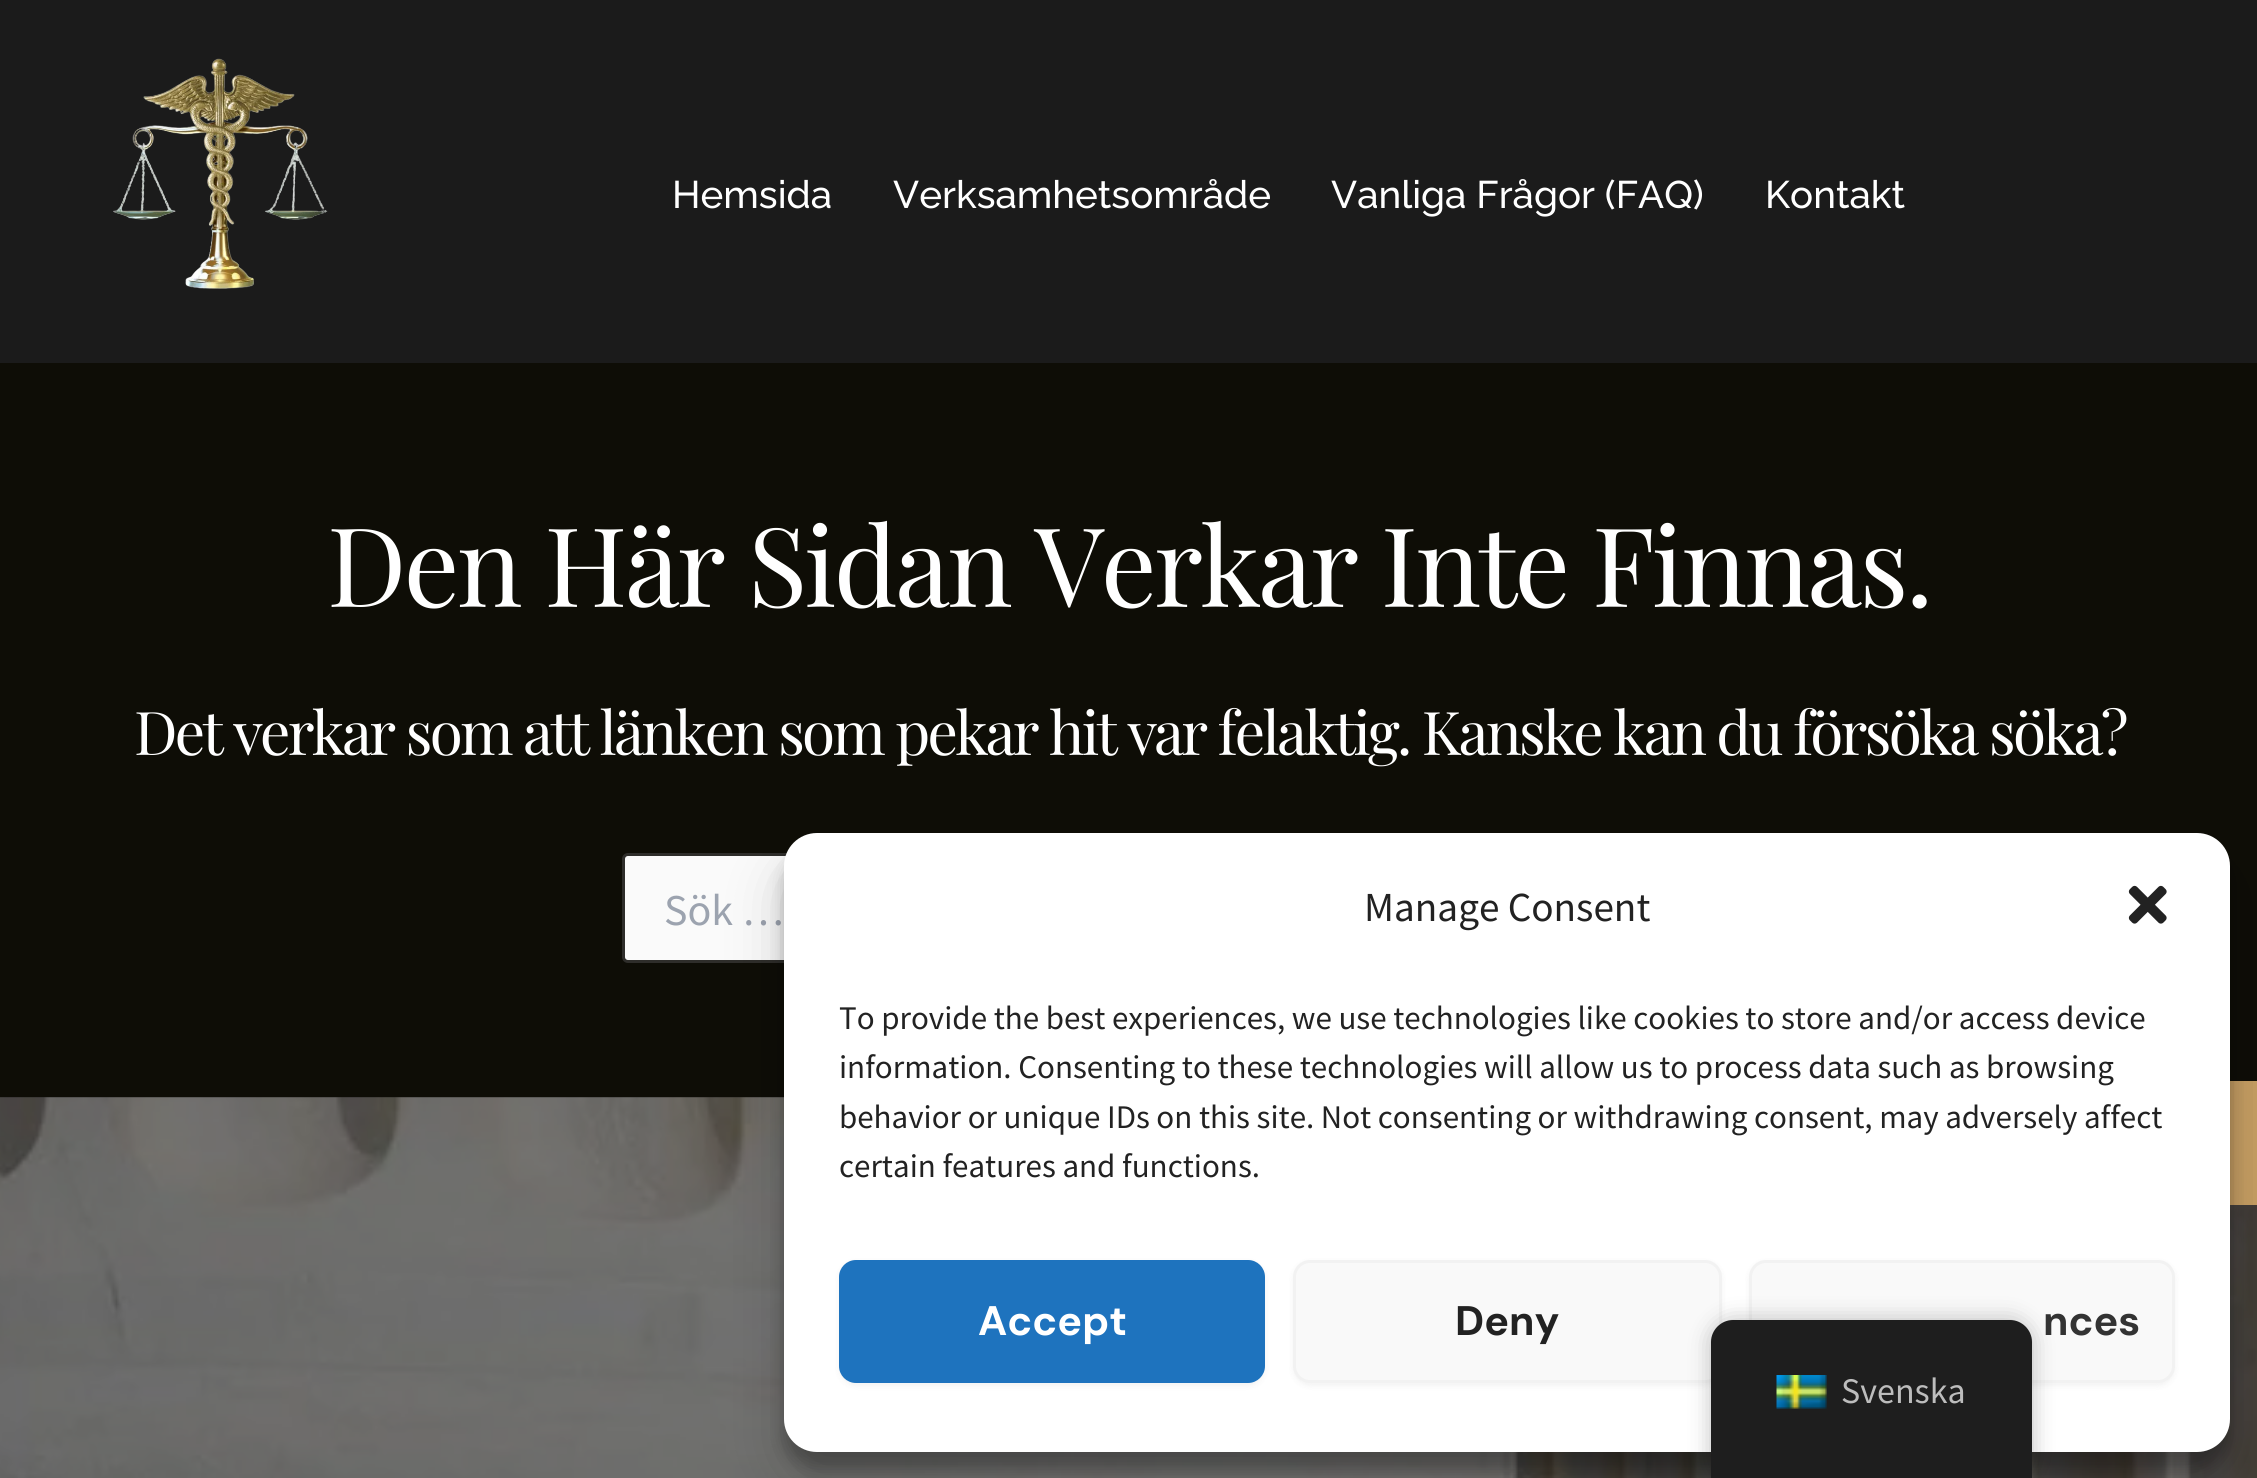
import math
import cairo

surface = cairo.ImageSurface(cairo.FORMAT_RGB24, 2257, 1478)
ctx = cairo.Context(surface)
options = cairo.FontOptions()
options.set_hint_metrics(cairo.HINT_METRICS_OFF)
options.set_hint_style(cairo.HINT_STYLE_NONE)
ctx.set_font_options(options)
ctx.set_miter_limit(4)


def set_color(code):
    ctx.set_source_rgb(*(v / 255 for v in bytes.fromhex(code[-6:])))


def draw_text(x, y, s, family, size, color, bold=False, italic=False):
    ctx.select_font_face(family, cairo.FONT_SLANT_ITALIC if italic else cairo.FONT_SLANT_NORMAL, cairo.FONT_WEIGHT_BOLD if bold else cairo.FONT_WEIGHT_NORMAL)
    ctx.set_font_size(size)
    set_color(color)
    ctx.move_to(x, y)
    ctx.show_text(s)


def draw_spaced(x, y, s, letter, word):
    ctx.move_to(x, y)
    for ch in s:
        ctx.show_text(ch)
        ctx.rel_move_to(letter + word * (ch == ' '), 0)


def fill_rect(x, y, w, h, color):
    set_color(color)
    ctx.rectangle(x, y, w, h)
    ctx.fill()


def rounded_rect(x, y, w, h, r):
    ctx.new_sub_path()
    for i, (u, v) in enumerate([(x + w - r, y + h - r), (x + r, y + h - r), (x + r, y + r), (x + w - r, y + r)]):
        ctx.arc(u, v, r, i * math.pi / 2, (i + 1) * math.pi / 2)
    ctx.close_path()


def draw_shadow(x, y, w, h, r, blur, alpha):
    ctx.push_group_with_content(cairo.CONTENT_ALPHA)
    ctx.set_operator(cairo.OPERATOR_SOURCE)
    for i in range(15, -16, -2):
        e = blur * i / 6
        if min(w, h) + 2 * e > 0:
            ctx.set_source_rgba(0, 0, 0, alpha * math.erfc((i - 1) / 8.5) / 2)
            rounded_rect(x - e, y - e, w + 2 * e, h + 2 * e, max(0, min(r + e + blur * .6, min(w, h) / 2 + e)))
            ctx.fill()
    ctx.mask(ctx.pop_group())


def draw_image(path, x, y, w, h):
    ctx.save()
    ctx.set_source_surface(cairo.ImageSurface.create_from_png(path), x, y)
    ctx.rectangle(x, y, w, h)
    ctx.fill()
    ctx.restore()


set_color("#1b1b1b")
ctx.paint()
draw_image("assets/img1.png", 113, 58, 215, 231)
draw_text(672, 208, "Hemsida", "Raleway Medium", 38.5, "#ffffff")
draw_text(893, 208, "Verksamhetsområde", "Raleway Medium", 38.5, "#ffffff")
draw_text(1331, 208, "Vanliga Frågor (FAQ)", "Raleway Medium", 38.5, "#ffffff")
draw_text(1765, 208, "Kontakt", "Raleway Medium", 38.5, "#ffffff")
fill_rect(0, 363, 2257, 734, "#0e0d06")
ctx.select_font_face("Playfair Display")
ctx.set_font_size(110)
set_color("#ffffff")
draw_spaced(327, 607, "Den Här Sidan Verkar Inte Finnas.", -2.75, 0)
ctx.set_font_size(60.2)
draw_spaced(134, 755, "Det verkar som att länken som pekar hit var felaktig. Kanske kan du försöka söka?", -2.75, 0)
set_color("#fafafa")
rounded_rect(623.5, 854.5, 1014, 107, 4.5)
ctx.fill_preserve()
set_color("#2e2d2a")
ctx.set_line_width(3)
ctx.stroke()
draw_text(664, 925, "Sök …", "Source Sans Pro", 44, "#9ca3af")
draw_image("assets/img3.png", 0, 1097, 2257, 381)
fill_rect(2230, 1081, 27, 124, "#c69e63")
set_color("#000000")
draw_shadow(784, 850, 1446, 619, 33, 8, 0.23)
draw_shadow(784, 861, 1446, 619, 33, 27.5, 0.19)
set_color("#ffffff")
rounded_rect(784, 833, 1446, 619, 33)
ctx.fill()
draw_text(1364, 921, "Manage Consent", "Source Sans Pro", 41.25, "#222222")
draw_image("assets/img2.png", 2128, 885, 39, 39)
draw_text(839, 1029, "To provide the best experiences, we use technologies like cookies to store and/or access device", "Source Sans Pro", 33, "#222222")
draw_text(839, 1078, "information. Consenting to these technologies will allow us to process data such as browsing", "Source Sans Pro", 33, "#222222")
draw_text(839, 1128, "behavior or unique IDs on this site. Not consenting or withdrawing consent, may adversely affect", "Source Sans Pro", 33, "#222222")
draw_text(839, 1177, "certain features and functions.", "Source Sans Pro", 33, "#222222")
set_color("#000000")
draw_shadow(839, 1262, 426, 124, 17, 3, 0.05)
set_color("#1e73be")
rounded_rect(840.5, 1261.5, 423, 120, 15.5)
ctx.fill_preserve()
ctx.stroke()
draw_text(978, 1335, "Accept", "DM Sans", 41.25, "#ffffff", bold=True)
set_color("#000000")
draw_shadow(1293, 1262, 429, 124, 17, 3, 0.05)
set_color("#f9f9f9")
rounded_rect(1294.5, 1261.5, 426, 120, 15.5)
ctx.fill_preserve()
set_color("#f2f2f2")
ctx.stroke()
draw_text(1455, 1335, "Deny", "DM Sans", 41.25, "#222222", bold=True)
set_color("#000000")
draw_shadow(1749, 1262, 426, 124, 17, 3, 0.05)
set_color("#f9f9f9")
rounded_rect(1750.5, 1261.5, 423, 120, 15.5)
ctx.fill_preserve()
set_color("#f2f2f2")
ctx.stroke()
draw_text(2043, 1335, "nces", "DM Sans", 41.25, "#333333", bold=True)
set_color("#000000")
draw_shadow(1711, 1320, 321, 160, 22, 11, 0.25)
set_color("#1e1e1e")
ctx.new_path()
ctx.move_to(1733, 1320)
ctx.line_to(2010, 1320)
ctx.curve_to(2022, 1320, 2032, 1330, 2032, 1342)
ctx.line_to(2032, 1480)
ctx.line_to(1711, 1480)
ctx.line_to(1711, 1342)
ctx.curve_to(1711, 1330, 1721, 1320, 1733, 1320)
ctx.close_path()
ctx.fill()
draw_image("assets/img4.png", 1776, 1375, 51, 34)
draw_text(1841, 1403, "Svenska", "Source Sans Pro", 36, "#bdbdbd")
surface.write_to_png("output.png")
